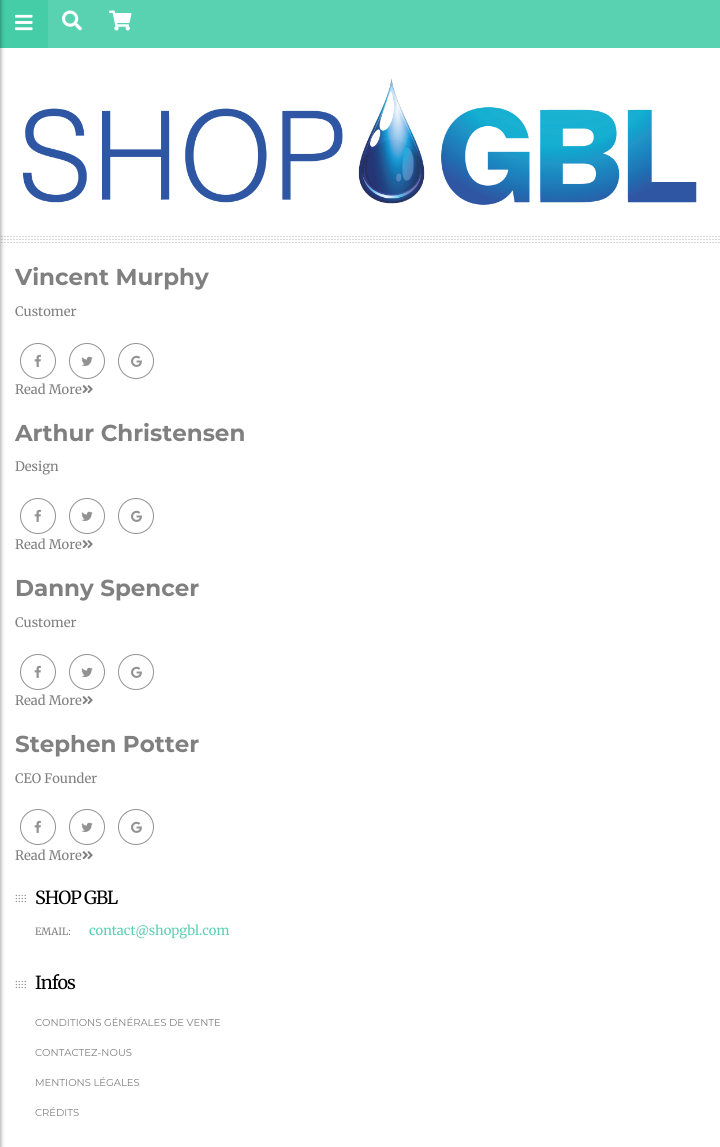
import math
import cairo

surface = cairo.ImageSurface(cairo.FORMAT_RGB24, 720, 1147)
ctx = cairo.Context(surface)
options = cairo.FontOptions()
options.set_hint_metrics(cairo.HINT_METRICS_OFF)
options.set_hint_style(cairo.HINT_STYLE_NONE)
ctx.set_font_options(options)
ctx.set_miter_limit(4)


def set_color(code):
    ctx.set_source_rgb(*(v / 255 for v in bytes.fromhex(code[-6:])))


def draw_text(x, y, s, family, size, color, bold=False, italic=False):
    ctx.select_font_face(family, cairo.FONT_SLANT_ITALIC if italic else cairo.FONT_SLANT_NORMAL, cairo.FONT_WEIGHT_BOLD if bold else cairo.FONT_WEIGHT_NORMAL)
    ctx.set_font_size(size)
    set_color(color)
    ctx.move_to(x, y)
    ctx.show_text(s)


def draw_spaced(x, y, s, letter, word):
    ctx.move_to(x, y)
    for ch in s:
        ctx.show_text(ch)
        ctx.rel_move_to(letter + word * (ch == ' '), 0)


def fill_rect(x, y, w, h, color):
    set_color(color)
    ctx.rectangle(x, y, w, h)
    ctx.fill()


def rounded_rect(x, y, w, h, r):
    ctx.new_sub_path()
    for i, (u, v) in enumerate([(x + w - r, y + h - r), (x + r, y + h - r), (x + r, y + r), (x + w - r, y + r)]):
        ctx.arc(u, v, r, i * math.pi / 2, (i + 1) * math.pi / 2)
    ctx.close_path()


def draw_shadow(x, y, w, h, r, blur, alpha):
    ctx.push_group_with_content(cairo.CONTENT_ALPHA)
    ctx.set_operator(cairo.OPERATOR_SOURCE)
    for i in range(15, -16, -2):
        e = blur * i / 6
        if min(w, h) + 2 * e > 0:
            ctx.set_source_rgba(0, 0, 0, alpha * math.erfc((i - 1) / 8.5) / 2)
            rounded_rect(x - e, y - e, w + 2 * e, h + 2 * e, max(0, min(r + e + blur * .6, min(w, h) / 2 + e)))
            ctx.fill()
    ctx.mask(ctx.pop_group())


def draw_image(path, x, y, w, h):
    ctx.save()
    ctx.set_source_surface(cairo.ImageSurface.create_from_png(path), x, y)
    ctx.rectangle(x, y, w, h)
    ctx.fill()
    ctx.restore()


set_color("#ffffff")
ctx.paint()
fill_rect(48, 0, 672, 48, "#58d2b0")
fill_rect(0, 0, 48, 48, "#44cda6")
draw_image("assets/img1.png", 15, 14, 18, 17)
draw_image("assets/img2.png", 62, 10, 20, 21)
draw_image("assets/img3.png", 109, 10, 23, 21)
draw_image("assets/img4.png", 0, 236, 720, 7)
set_color("#000000")
draw_shadow(-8, 0, 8, 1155, 0, 2.5, 0.5)
draw_image("assets/img5.png", 23, 78, 674, 127)
draw_text(15, 285, "Vincent Murphy", "Montserrat", 23, "#808080", bold=True)
draw_text(15, 316, "Customer", "Merriweather", 13, "#808080")
ctx.new_path()
ctx.arc(38, 361, 17.5, 0, 2 * math.pi)
set_color("#929292")
ctx.set_line_width(1)
ctx.stroke()
draw_image("assets/img6.png", 34, 354, 7, 13)
ctx.arc(87, 361, 17.5, 0, 2 * math.pi)
ctx.stroke()
draw_image("assets/img7.png", 81, 356, 12, 10)
ctx.arc(136, 361, 17.5, 0, 2 * math.pi)
ctx.stroke()
draw_image("assets/img8.png", 131, 355, 11, 12)
draw_text(15, 394, "Read More", "Merriweather", 13, "#808080")
draw_image("assets/img9.png", 82, 385, 11, 9)
draw_text(15, 441, "Arthur Christensen", "Montserrat", 23, "#808080", bold=True)
draw_text(15, 471, "Design", "Merriweather", 13, "#808080")
ctx.new_path()
ctx.arc(38, 516, 17.5, 0, 2 * math.pi)
set_color("#929292")
ctx.stroke()
draw_image("assets/img6.png", 34, 509, 7, 13)
ctx.arc(87, 516, 17.5, 0, 2 * math.pi)
ctx.stroke()
draw_image("assets/img7.png", 81, 511, 12, 10)
ctx.arc(136, 516, 17.5, 0, 2 * math.pi)
ctx.stroke()
draw_image("assets/img8.png", 131, 510, 11, 12)
draw_text(15, 549, "Read More", "Merriweather", 13, "#808080")
draw_image("assets/img9.png", 82, 540, 11, 9)
draw_text(15, 596, "Danny Spencer", "Montserrat", 23, "#808080", bold=True)
draw_text(15, 627, "Customer", "Merriweather", 13, "#808080")
ctx.new_path()
ctx.arc(38, 672, 17.5, 0, 2 * math.pi)
set_color("#929292")
ctx.stroke()
draw_image("assets/img6.png", 34, 665, 7, 13)
ctx.arc(87, 672, 17.5, 0, 2 * math.pi)
ctx.stroke()
draw_image("assets/img7.png", 81, 667, 12, 10)
ctx.arc(136, 672, 17.5, 0, 2 * math.pi)
ctx.stroke()
draw_image("assets/img8.png", 131, 666, 11, 12)
draw_text(15, 705, "Read More", "Merriweather", 13, "#808080")
draw_image("assets/img9.png", 82, 696, 11, 9)
draw_text(15, 752, "Stephen Potter", "Montserrat", 23, "#808080", bold=True)
draw_text(15, 783, "CEO Founder", "Merriweather", 13, "#808080")
ctx.new_path()
ctx.arc(38, 827, 17.5, 0, 2 * math.pi)
set_color("#929292")
ctx.stroke()
draw_image("assets/img6.png", 34, 820, 7, 13)
ctx.arc(87, 827, 17.5, 0, 2 * math.pi)
ctx.stroke()
draw_image("assets/img7.png", 81, 822, 12, 10)
ctx.arc(136, 827, 17.5, 0, 2 * math.pi)
ctx.stroke()
draw_image("assets/img8.png", 131, 821, 11, 12)
draw_text(15, 860, "Read More", "Merriweather", 13, "#808080")
draw_image("assets/img9.png", 82, 851, 11, 9)
draw_image("assets/img10.png", 15, 894, 11, 9)
ctx.set_font_size(18)
set_color("#000000")
draw_spaced(35, 904, "SHOP GBL", -1, 0)
draw_text(35, 935, "EMAIL:", "Merriweather", 10, "#808080")
draw_text(89, 935, "contact@shopgbl.com", "Merriweather", 13, "#58d2b0")
draw_image("assets/img10.png", 15, 980, 11, 9)
ctx.set_font_size(18)
set_color("#000000")
draw_spaced(35, 989, "Infos", -1, 0)
draw_text(35, 1026, "CONDITIONS GÉNÉRALES DE VENTE", "Montserrat", 10, "#808080")
draw_text(35, 1056, "CONTACTEZ-NOUS", "Montserrat", 10, "#808080")
draw_text(35, 1086, "MENTIONS LÉGALES", "Montserrat", 10, "#808080")
draw_text(35, 1116, "CRÉDITS", "Montserrat", 10, "#808080")
surface.write_to_png("output.png")
